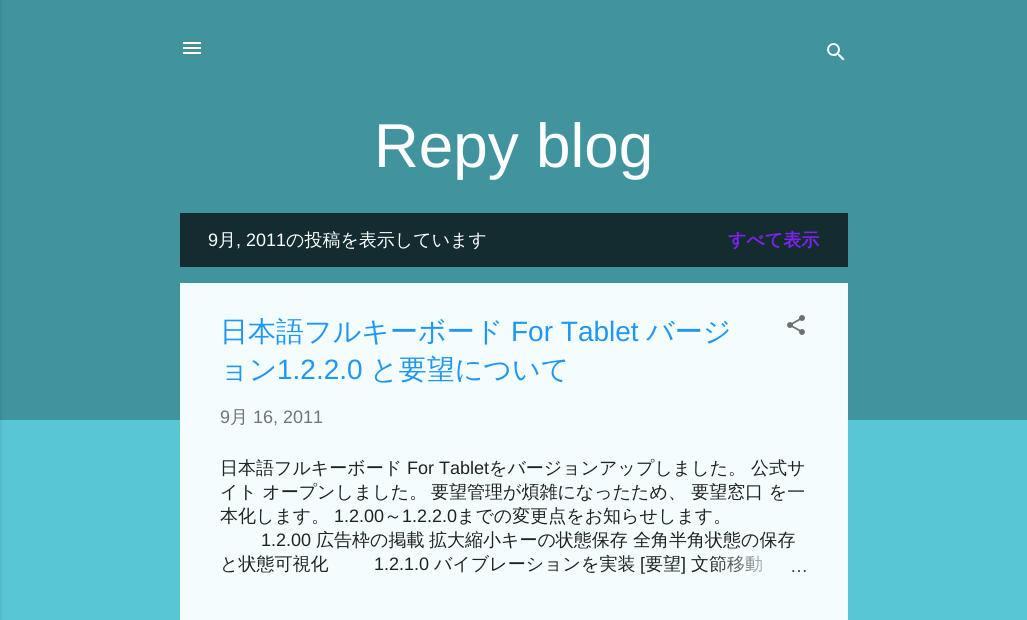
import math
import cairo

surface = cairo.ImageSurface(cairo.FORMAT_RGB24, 1027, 620)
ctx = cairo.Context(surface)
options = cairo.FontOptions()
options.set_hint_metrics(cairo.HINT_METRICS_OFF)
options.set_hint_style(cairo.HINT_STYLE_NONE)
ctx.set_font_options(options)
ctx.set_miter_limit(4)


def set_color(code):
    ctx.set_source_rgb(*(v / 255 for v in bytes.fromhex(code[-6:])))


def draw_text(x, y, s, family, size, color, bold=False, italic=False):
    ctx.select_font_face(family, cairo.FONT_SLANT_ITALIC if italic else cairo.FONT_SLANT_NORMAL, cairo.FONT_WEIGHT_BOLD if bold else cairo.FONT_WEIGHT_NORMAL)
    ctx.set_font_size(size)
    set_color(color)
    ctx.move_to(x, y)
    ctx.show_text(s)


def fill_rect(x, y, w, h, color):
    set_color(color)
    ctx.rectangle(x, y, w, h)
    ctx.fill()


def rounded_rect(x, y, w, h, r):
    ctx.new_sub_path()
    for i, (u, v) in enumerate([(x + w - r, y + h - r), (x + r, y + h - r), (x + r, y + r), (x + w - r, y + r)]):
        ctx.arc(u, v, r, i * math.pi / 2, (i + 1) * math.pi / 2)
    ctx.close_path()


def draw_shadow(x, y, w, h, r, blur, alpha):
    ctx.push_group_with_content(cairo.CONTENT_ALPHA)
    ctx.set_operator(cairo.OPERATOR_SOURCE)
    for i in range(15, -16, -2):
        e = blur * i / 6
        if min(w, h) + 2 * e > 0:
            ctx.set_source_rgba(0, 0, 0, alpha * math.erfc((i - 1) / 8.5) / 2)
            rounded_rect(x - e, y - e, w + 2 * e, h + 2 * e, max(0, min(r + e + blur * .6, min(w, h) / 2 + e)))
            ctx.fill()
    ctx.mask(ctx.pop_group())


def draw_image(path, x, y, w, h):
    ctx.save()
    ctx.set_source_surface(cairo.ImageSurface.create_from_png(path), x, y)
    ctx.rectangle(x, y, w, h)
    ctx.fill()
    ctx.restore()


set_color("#58c6d5")
ctx.paint()
fill_rect(0, 0, 1027, 420, "#41939e")
set_color("#000000")
draw_shadow(-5, 1, 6, 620, 0, 1.5, 0.1)
draw_image("assets/img1.png", 183, 42, 18, 12)
draw_image("assets/img2.png", 827, 43, 18, 18)
draw_text(374, 167, "Repy blog", "Liberation Sans", 62, "#ffffff")
fill_rect(180, 213, 668, 54, "#142c2f")
draw_text(208, 246, "9", "Liberation Sans", 18, "#ffffff")
draw_text(218, 246, "月", "WenQuanYi Zen Hei Medium", 18, "#ffffff")
draw_text(236, 246, ", 2011", "Liberation Sans", 18, "#ffffff")
draw_text(286, 246, "の投稿を表示しています", "WenQuanYi Zen Hei Medium", 18, "#ffffff")
draw_text(728, 246, "すべて表示", "WenQuanYi Zen Hei", 18, "#7f21f3", bold=True)
fill_rect(180, 283, 668, 337, "#f3fdfe")
draw_text(220, 341, "日本語フルキーボード", "WenQuanYi Zen Hei Medium", 28, "#2196f3")
draw_text(511, 341, "For Tablet", "Liberation Sans", 28, "#2196f3")
draw_text(646, 341, "バージ", "WenQuanYi Zen Hei Medium", 28, "#2196f3")
draw_text(220, 379, "ョン", "WenQuanYi Zen Hei Medium", 28, "#2196f3")
draw_text(277, 379, "1.2.2.0", "Liberation Sans", 28, "#2196f3")
draw_text(370, 379, "と要望について", "WenQuanYi Zen Hei Medium", 28, "#2196f3")
draw_image("assets/img3.png", 787, 315, 18, 20)
draw_text(220, 423, "9", "Liberation Sans", 18, "#707475")
draw_text(230, 423, "月", "WenQuanYi Zen Hei Medium", 18, "#707475")
draw_text(253, 423, "16, 2011", "Liberation Sans", 18, "#707475")
draw_text(220, 474, "日本語フルキーボード", "WenQuanYi Zen Hei Medium", 18, "#212121")
draw_text(407, 474, "For Tablet", "Liberation Sans", 18, "#212121")
draw_text(489, 474, "をバージョンアップしました。", "WenQuanYi Zen Hei Medium", 18, "#212121")
draw_text(751, 474, "公式サ", "WenQuanYi Zen Hei Medium", 18, "#212121")
draw_text(220, 498, "イト オープンしました。", "WenQuanYi Zen Hei Medium", 18, "#212121")
draw_text(431, 498, "要望管理が煩雑になったため、 要望窓口 を一", "WenQuanYi Zen Hei Medium", 18, "#212121")
draw_text(220, 522, "本化します。", "WenQuanYi Zen Hei Medium", 18, "#212121")
draw_text(334, 522, "1.2.00", "Liberation Sans", 18, "#212121")
draw_text(384, 522, "～", "WenQuanYi Zen Hei Medium", 18, "#212121")
draw_text(402, 522, "1.2.2.0", "Liberation Sans", 18, "#212121")
draw_text(457, 522, "までの変更点をお知らせします。", "WenQuanYi Zen Hei Medium", 18, "#212121")
draw_text(261, 546, "1.2.00", "Liberation Sans", 18, "#212121")
draw_text(316, 546, "広告枠の掲載", "WenQuanYi Zen Hei Medium", 18, "#212121")
draw_text(429, 546, "拡大縮小キーの状態保存", "WenQuanYi Zen Hei Medium", 18, "#212121")
draw_text(633, 546, "全角半角状態の保存", "WenQuanYi Zen Hei Medium", 18, "#212121")
draw_text(220, 570, "と状態可視化", "WenQuanYi Zen Hei Medium", 18, "#212121")
draw_text(374, 570, "1.2.1.0", "Liberation Sans", 18, "#212121")
draw_text(434, 570, "バイブレーションを実装", "WenQuanYi Zen Hei Medium", 18, "#212121")
draw_text(640, 570, "[", "Liberation Sans", 18, "#212121")
draw_text(645, 570, "要望", "WenQuanYi Zen Hei Medium", 18, "#212121")
draw_text(681, 570, "]", "Liberation Sans", 18, "#212121")
draw_text(691, 570, "文節移動", "WenQuanYi Zen Hei Medium", 18, "#212121")
gradient = cairo.LinearGradient(808, 564, 712, 564)
gradient.add_color_stop_rgba(0, 0.953, 0.992, 0.996, 1)
gradient.add_color_stop_rgba(0.2, 0.953, 0.992, 0.996, 1)
gradient.add_color_stop_rgba(1, 0.953, 0.992, 0.996, 0)
ctx.set_source(gradient)
ctx.rectangle(714, 555, 49, 18)
ctx.fill()
draw_text(790, 572, "…", "Liberation Sans", 18, "#3b3b3b")
surface.write_to_png("output.png")
